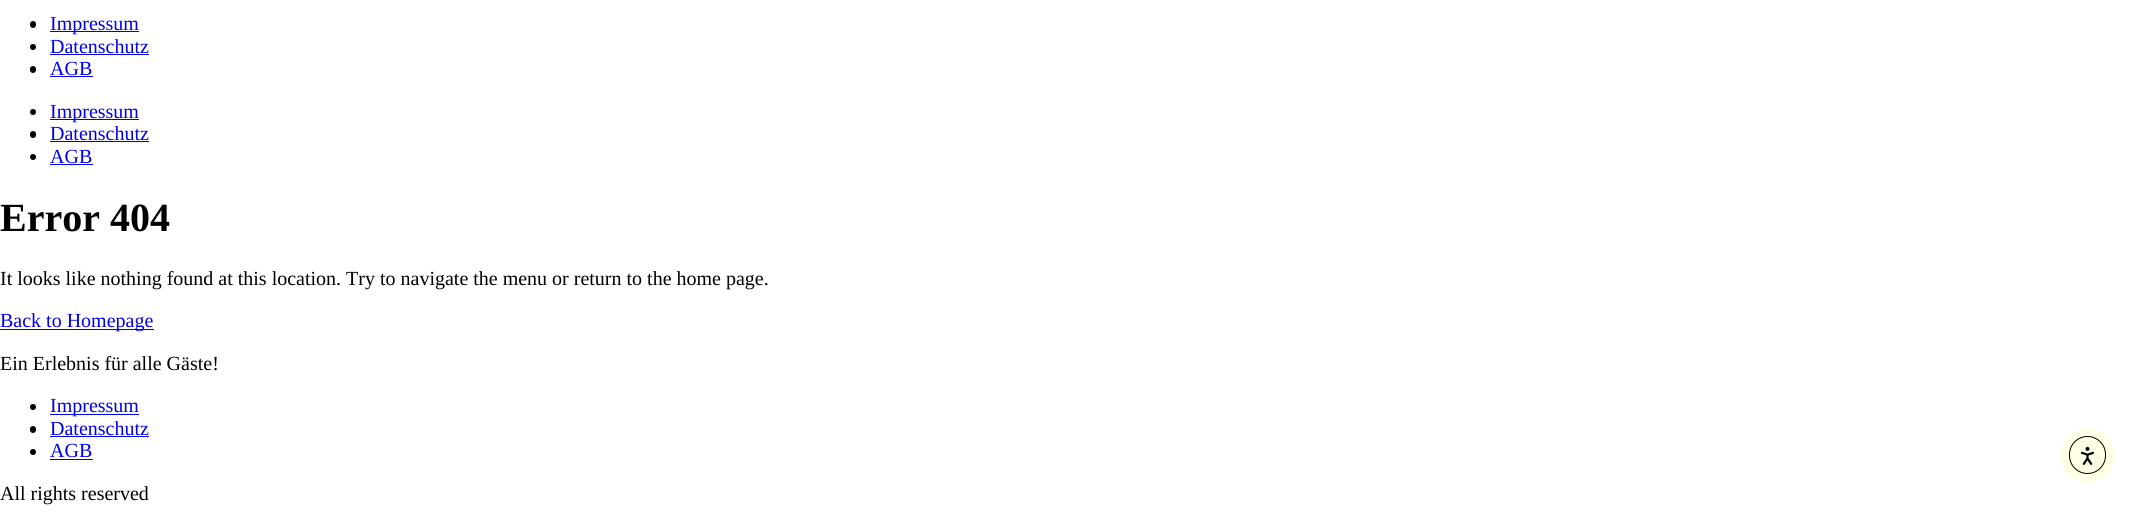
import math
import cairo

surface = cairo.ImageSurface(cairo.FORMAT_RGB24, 2144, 512)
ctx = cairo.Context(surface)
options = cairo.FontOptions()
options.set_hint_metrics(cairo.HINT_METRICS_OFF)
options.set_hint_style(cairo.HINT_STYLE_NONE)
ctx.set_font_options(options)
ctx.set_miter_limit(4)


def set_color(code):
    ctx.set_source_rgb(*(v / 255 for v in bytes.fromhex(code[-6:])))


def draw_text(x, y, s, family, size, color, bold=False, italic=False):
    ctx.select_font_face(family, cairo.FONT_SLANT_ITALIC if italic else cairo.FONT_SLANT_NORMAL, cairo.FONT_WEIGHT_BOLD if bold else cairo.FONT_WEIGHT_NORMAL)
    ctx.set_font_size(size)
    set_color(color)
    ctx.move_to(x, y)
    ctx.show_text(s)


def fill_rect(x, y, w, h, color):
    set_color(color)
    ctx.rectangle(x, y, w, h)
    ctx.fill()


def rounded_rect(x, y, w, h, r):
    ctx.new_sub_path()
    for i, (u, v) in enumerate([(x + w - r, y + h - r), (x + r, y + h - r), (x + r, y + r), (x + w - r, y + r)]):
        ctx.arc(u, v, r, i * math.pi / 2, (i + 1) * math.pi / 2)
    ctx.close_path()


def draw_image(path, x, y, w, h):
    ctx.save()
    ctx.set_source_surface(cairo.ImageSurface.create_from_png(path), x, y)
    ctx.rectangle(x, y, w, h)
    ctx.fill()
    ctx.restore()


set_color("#ffffff")
ctx.paint()
set_color("#000000")
rounded_rect(30, 21, 6, 7, 3)
ctx.fill()
fill_rect(50, 31, 89, 1, "#0000ee")
draw_text(50, 30, "Impressum", "Liberation Serif", 20, "#0000ee")
set_color("#000000")
ctx.new_path()
ctx.arc(33, 47, 3, 0, 2 * math.pi)
ctx.fill()
draw_text(50, 53, "Datenschutz", "Liberation Serif", 20, "#0000ee")
fill_rect(50, 54, 99, 1, "#0000ee")
set_color("#000000")
rounded_rect(30, 66, 6, 7, 3)
ctx.fill()
draw_text(50, 75, "AGB", "Liberation Serif", 20, "#0000ee")
fill_rect(50, 76, 43, 1, "#0000ee")
set_color("#000000")
ctx.new_path()
ctx.arc(33, 112, 3, 0, 2 * math.pi)
ctx.fill()
fill_rect(50, 119, 89, 1, "#0000ee")
draw_text(50, 118, "Impressum", "Liberation Serif", 20, "#0000ee")
set_color("#000000")
rounded_rect(30, 131, 6, 7, 3)
ctx.fill()
draw_text(50, 140, "Datenschutz", "Liberation Serif", 20, "#0000ee")
fill_rect(50, 141, 99, 1, "#0000ee")
set_color("#000000")
ctx.new_path()
ctx.arc(33, 157, 3, 0, 2 * math.pi)
ctx.fill()
draw_text(50, 163, "AGB", "Liberation Serif", 20, "#0000ee")
fill_rect(50, 164, 43, 1, "#0000ee")
draw_text(0, 231, "Error 404", "Liberation Serif", 40, "#000000", bold=True)
draw_text(0, 285, "It looks like nothing found at this location. Try to navigate the menu or return to the home page.", "Liberation Serif", 20, "#000000")
fill_rect(0, 329, 154, 1, "#0000ee")
draw_text(0, 327, "Back to Homepage", "Liberation Serif", 20, "#0000ee")
draw_text(0, 370, "Ein Erlebnis für alle Gäste!", "Liberation Serif", 20, "#000000")
ctx.new_path()
ctx.arc(33, 407, 3, 0, 2 * math.pi)
ctx.fill()
fill_rect(50, 414, 89, 1, "#0000ee")
draw_text(50, 412, "Impressum", "Liberation Serif", 20, "#0000ee")
set_color("#000000")
rounded_rect(30, 426, 6, 7, 3)
ctx.fill()
draw_text(50, 435, "Datenschutz", "Liberation Serif", 20, "#0000ee")
fill_rect(50, 436, 99, 1, "#0000ee")
set_color("#000000")
ctx.new_path()
ctx.arc(33, 452, 3, 0, 2 * math.pi)
ctx.fill()
draw_text(50, 457, "AGB", "Liberation Serif", 20, "#0000ee")
fill_rect(50, 459, 43, 1, "#0000ee")
draw_text(0, 500, "All rights reserved", "Liberation Serif", 20, "#000000")
set_color("#ffffe6")
ctx.new_path()
ctx.arc(2087.5, 455.5, 27.5, 0, 2 * math.pi)
ctx.fill()
rounded_rect(2069.5, 436.5, 36, 37, 18)
set_color("#000000")
ctx.set_line_width(1)
ctx.stroke()
draw_image("assets/img1.png", 2081, 446, 13, 19)
surface.write_to_png("output.png")
